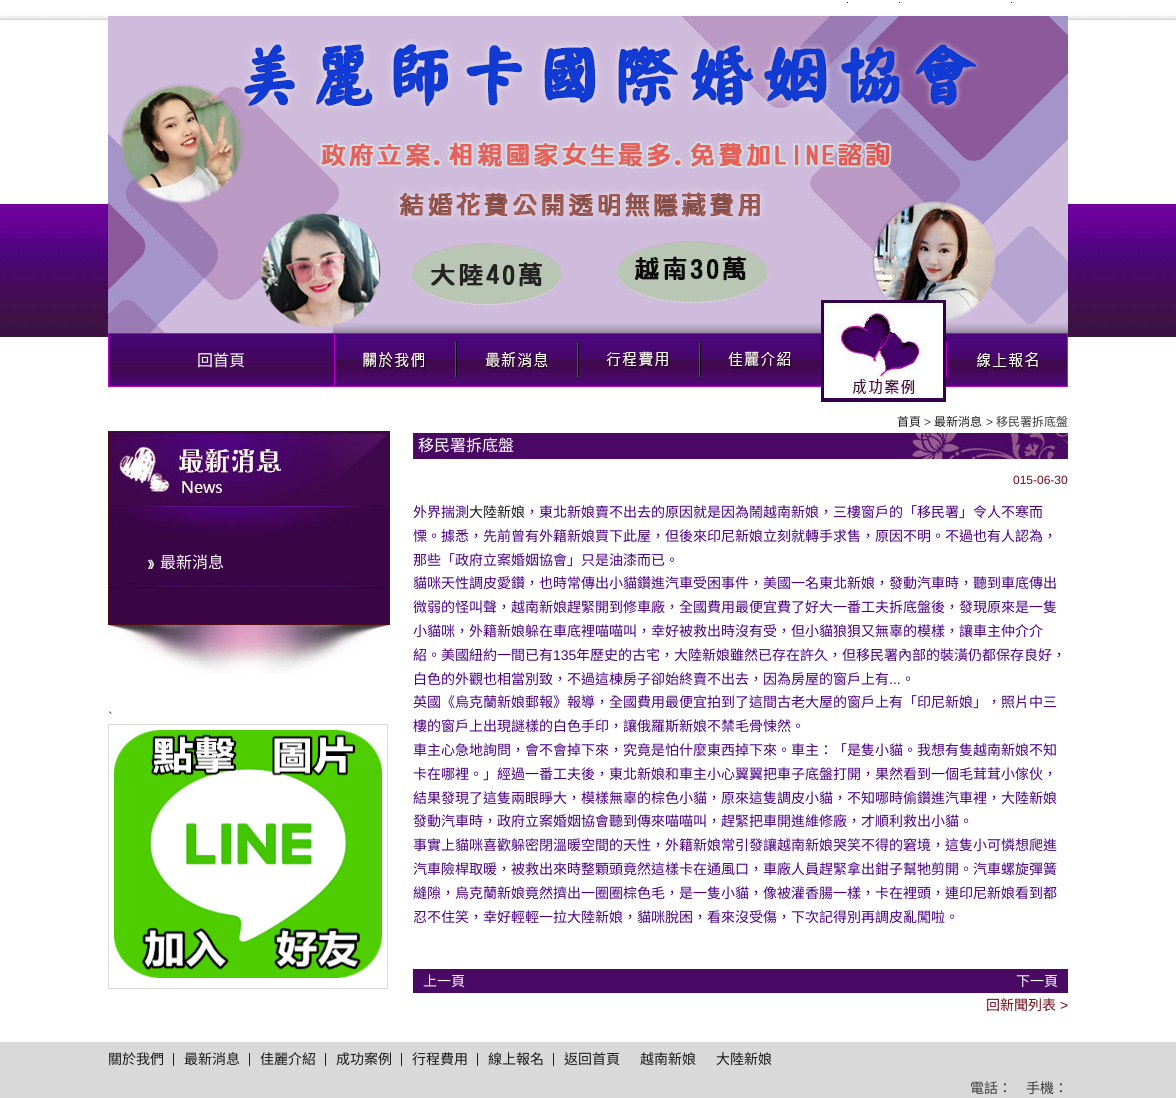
import math
import cairo

surface = cairo.ImageSurface(cairo.FORMAT_RGB24, 1176, 1098)
ctx = cairo.Context(surface)
options = cairo.FontOptions()
options.set_hint_metrics(cairo.HINT_METRICS_OFF)
options.set_hint_style(cairo.HINT_STYLE_NONE)
ctx.set_font_options(options)
ctx.set_miter_limit(4)


def set_color(code):
    ctx.set_source_rgb(*(v / 255 for v in bytes.fromhex(code[-6:])))


def draw_text(x, y, s, family, size, color, bold=False, italic=False):
    ctx.select_font_face(family, cairo.FONT_SLANT_ITALIC if italic else cairo.FONT_SLANT_NORMAL, cairo.FONT_WEIGHT_BOLD if bold else cairo.FONT_WEIGHT_NORMAL)
    ctx.set_font_size(size)
    set_color(color)
    ctx.move_to(x, y)
    ctx.show_text(s)


def fill_rect(x, y, w, h, color):
    set_color(color)
    ctx.rectangle(x, y, w, h)
    ctx.fill()


def draw_image(path, x, y, w, h):
    ctx.save()
    ctx.set_source_surface(cairo.ImageSurface.create_from_png(path), x, y)
    ctx.rectangle(x, y, w, h)
    ctx.fill()
    ctx.restore()


set_color("#ffffff")
ctx.paint()
draw_image("assets/img1.png", 0, 15, 1176, 323)
fill_rect(847, 2, 1, 1, "#2f2f2f")
fill_rect(899, 2, 1, 1, "#2f2f2f")
fill_rect(1011, 2, 1, 1, "#2f2f2f")
draw_image("assets/img2.png", 108, 16, 960, 317)
draw_image("assets/img3.png", 333, 323, 122, 64)
gradient = cairo.LinearGradient(222, 334, 222, 386)
gradient.add_color_stop_rgba(0, 0.282, 0.024, 0.471, 1)
gradient.add_color_stop_rgba(0.7, 0.255, 0.035, 0.314, 1)
gradient.add_color_stop_rgba(1, 0.286, 0.024, 0.471, 1)
ctx.set_source(gradient)
ctx.rectangle(109, 334, 225, 52)
ctx.fill()
ctx.rectangle(108.5, 333.5, 226, 53)
set_color("#be00cf")
ctx.set_line_width(1)
ctx.stroke()
draw_text(197, 366, "回首頁", "Noto Sans CJK TC", 16, "#ffffff")
draw_image("assets/img4.png", 455, 323, 122, 64)
draw_image("assets/img5.png", 577, 323, 122, 64)
draw_image("assets/img6.png", 699, 323, 122, 64)
draw_image("assets/img7.png", 821, 300, 125, 102)
draw_image("assets/img8.png", 946, 323, 122, 64)
set_color("#3a0646")
ctx.rectangle(108.5, 431.5, 281, 193)
ctx.fill_preserve()
set_color("#520c17")
ctx.stroke()
draw_image("assets/img9.png", 110, 433, 278, 100)
draw_image("assets/img10.png", 110, 559, 278, 29)
draw_text(160, 568, "最新消息", "Noto Sans CJK TC", 16, "#ffffff")
draw_image("assets/img11.png", 108, 625, 280, 49)
draw_text(108, 722, "`", "Liberation Sans", 14, "#3d3d3d")
ctx.rectangle(108.5, 724.5, 279, 264)
set_color("#d9d9d9")
ctx.stroke()
draw_image("assets/img12.png", 114, 730, 268, 248)
draw_text(897, 426, "首頁", "Noto Sans CJK TC", 12, "#191919")
draw_text(924, 426, ">", "Liberation Sans", 12, "#3d3d3d")
draw_text(934, 426, "最新消息", "Noto Sans CJK TC", 12, "#191919")
draw_text(986, 426, ">", "Liberation Sans", 12, "#3d3d3d")
draw_text(996, 426, "移民署拆底盤", "Noto Sans CJK TC", 12, "#3d3d3d")
draw_image("assets/img13.png", 413, 433, 655, 26)
draw_text(418, 451, "移民署拆底盤", "Noto Sans CJK TC", 16, "#ffffff")
draw_text(1013, 484, "015-06-30", "Liberation Sans", 12, "#6d0d1a")
draw_text(413, 517, "外界揣測", "Noto Sans CJK TC", 14, "#4b0082")
draw_text(469, 517, "大陸新娘", "Noto Sans CJK TC", 14, "#191919")
draw_text(525, 517, "，東北新娘賣不出去的原因就是因為鬧越南新娘，三樓窗戶的「移民署」令人不寒而", "Noto Sans CJK TC", 14, "#4b0082")
draw_text(413, 541, "慄。據悉，先前曾有外籍新娘買下此屋，但後來印尼新娘立刻就轉手求售，原因不明。不過也有人認為，", "Noto Sans CJK TC", 14, "#4b0082")
draw_text(413, 565, "那些「政府立案婚姻協會」只是油漆而已。", "Noto Sans CJK TC", 14, "#4b0082")
draw_text(413, 588, "貓咪天性調皮愛鑽，也時常傳出小貓鑽進汽車受困事件，美國一名東北新娘，發動汽車時，聽到車底傳出", "Noto Sans CJK TC", 14, "#4b0082")
draw_text(413, 612, "微弱的怪叫聲，越南新娘趕緊開到修車廠，全國費用最便宜費了好大一番工夫拆底盤後，發現原來是一隻", "Noto Sans CJK TC", 14, "#4b0082")
draw_text(413, 636, "小貓咪，外籍新娘躲在車底裡喵喵叫，幸好被救出時沒有受，但小貓狼狽又無辜的模樣，讓車主仲介介", "Noto Sans CJK TC", 14, "#4b0082")
draw_text(413, 660, "紹。美國紐約一間已有", "Noto Sans CJK TC", 14, "#4b0082")
draw_text(553, 660, "135", "Liberation Sans", 14, "#4b0082")
draw_text(576, 660, "年歷史的古宅，大陸新娘雖然已存在許久，但移民署內部的裝潢仍都保存良好，", "Noto Sans CJK TC", 14, "#4b0082")
draw_text(413, 684, "白色的外觀也相當別致，不過這棟房子卻始終賣不出去，因為房屋的窗戶上有", "Noto Sans CJK TC", 14, "#4b0082")
draw_text(901, 684, "。", "Noto Sans CJK TC", 14, "#4b0082")
draw_text(889, 684, "...", "Liberation Sans", 14, "#4b0082")
draw_text(413, 707, "英國《烏克蘭新娘郵報》報導，全國費用最便宜拍到了這間古老大屋的窗戶上有「印尼新娘」，照片中三", "Noto Sans CJK TC", 14, "#4b0082")
draw_text(413, 731, "樓的窗戶上出現謎樣的白色手印，讓俄羅斯新娘不禁毛骨悚然。", "Noto Sans CJK TC", 14, "#4b0082")
draw_text(413, 755, "車主心急地詢問，會不會掉下來，究竟是怕什麼東西掉下來。車主：「是隻小貓。我想有隻越南新娘不知", "Noto Sans CJK TC", 14, "#4b0082")
draw_text(413, 779, "卡在哪裡。」經過一番工夫後，東北新娘和車主小心翼翼把車子底盤打開，果然看到一個毛茸茸小傢伙，", "Noto Sans CJK TC", 14, "#4b0082")
draw_text(413, 803, "結果發現了這隻兩眼睜大，模樣無辜的棕色小貓，原來這隻調皮小貓，不知哪時偷鑽進汽車裡，大陸新娘", "Noto Sans CJK TC", 14, "#4b0082")
draw_text(413, 826, "發動汽車時，政府立案婚姻協會聽到傳來喵喵叫，趕緊把車開進維修廠，才順利救出小貓。", "Noto Sans CJK TC", 14, "#4b0082")
draw_text(413, 850, "事實上貓咪喜歡躲密閉溫暖空間的天性，外籍新娘常引發讓越南新娘哭笑不得的窘境，這隻小可憐想爬進", "Noto Sans CJK TC", 14, "#4b0082")
draw_text(413, 874, "汽車險桿取暖，被救出來時整顆頭竟然這樣卡在通風口，車廠人員趕緊拿出鉗子幫牠剪開。汽車螺旋彈簧", "Noto Sans CJK TC", 14, "#4b0082")
draw_text(413, 898, "縫隙，烏克蘭新娘竟然擠出一圈圈棕色毛，是一隻小貓，像被灌香腸一樣，卡在裡頭，連印尼新娘看到都", "Noto Sans CJK TC", 14, "#4b0082")
draw_text(413, 922, "忍不住笑，幸好輕輕一拉大陸新娘，貓咪脫困，看來沒受傷，下次記得別再調皮亂闖啦。", "Noto Sans CJK TC", 14, "#4b0082")
fill_rect(413, 969, 655, 24, "#4a0965")
draw_text(423, 986, "上一頁", "Noto Sans CJK TC", 14, "#ffffff")
draw_text(1016, 986, "下一頁", "Noto Sans CJK TC", 14, "#ffffff")
draw_text(986, 1010, "回新聞列表", "Noto Sans CJK TC", 14, "#6d0d1a")
draw_text(1060, 1010, ">", "Liberation Sans", 14, "#6d0d1a")
fill_rect(0, 1042, 1176, 56, "#d9d9d9")
fill_rect(173, 1053, 1, 13, "#1e1e1e")
draw_text(108, 1064, "關於我們", "Noto Sans CJK TC", 14, "#191919")
fill_rect(249, 1053, 1, 13, "#1e1e1e")
draw_text(184, 1064, "最新消息", "Noto Sans CJK TC", 14, "#191919")
fill_rect(325, 1053, 1, 13, "#1e1e1e")
draw_text(260, 1064, "佳麗介紹", "Noto Sans CJK TC", 14, "#191919")
fill_rect(401, 1053, 1, 13, "#1e1e1e")
draw_text(336, 1064, "成功案例", "Noto Sans CJK TC", 14, "#191919")
fill_rect(477, 1053, 1, 13, "#1e1e1e")
draw_text(412, 1064, "行程費用", "Noto Sans CJK TC", 14, "#191919")
fill_rect(553, 1053, 1, 13, "#1e1e1e")
draw_text(488, 1064, "線上報名", "Noto Sans CJK TC", 14, "#191919")
draw_text(564, 1064, "返回首頁", "Noto Sans CJK TC", 14, "#191919")
draw_text(640, 1064, "越南新娘", "Noto Sans CJK TC", 14, "#191919")
draw_text(716, 1064, "大陸新娘", "Noto Sans CJK TC", 14, "#191919")
draw_text(970, 1093, "電話：　手機：", "Noto Sans CJK TC", 14, "#3d3d3d")
surface.write_to_png("output.png")
